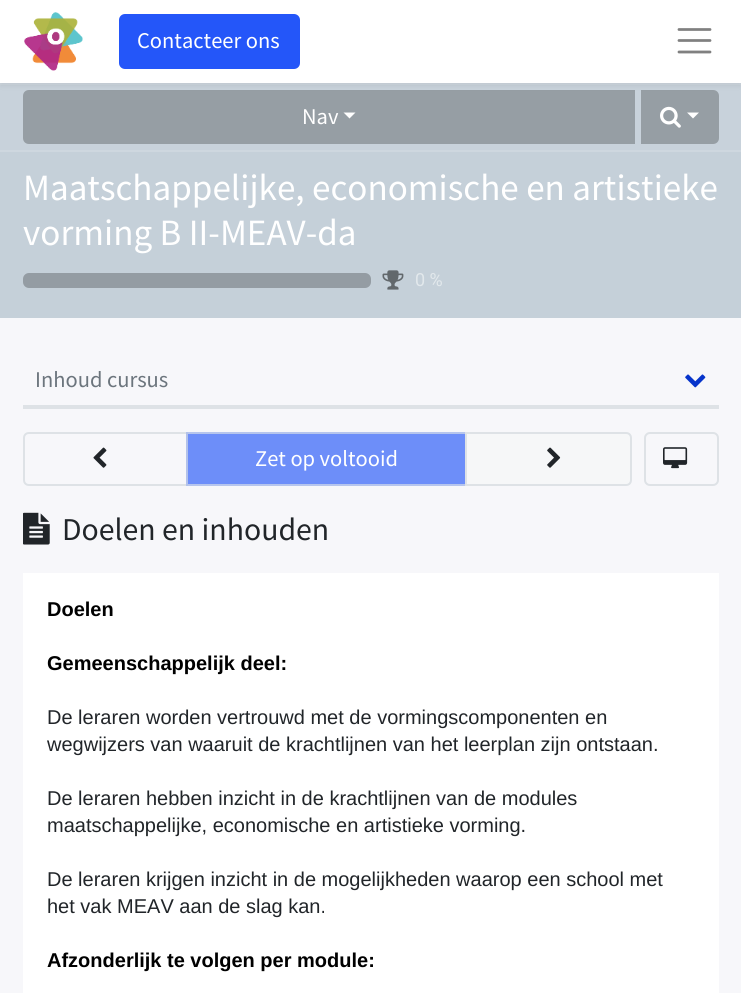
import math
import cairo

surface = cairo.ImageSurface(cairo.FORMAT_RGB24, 741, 993)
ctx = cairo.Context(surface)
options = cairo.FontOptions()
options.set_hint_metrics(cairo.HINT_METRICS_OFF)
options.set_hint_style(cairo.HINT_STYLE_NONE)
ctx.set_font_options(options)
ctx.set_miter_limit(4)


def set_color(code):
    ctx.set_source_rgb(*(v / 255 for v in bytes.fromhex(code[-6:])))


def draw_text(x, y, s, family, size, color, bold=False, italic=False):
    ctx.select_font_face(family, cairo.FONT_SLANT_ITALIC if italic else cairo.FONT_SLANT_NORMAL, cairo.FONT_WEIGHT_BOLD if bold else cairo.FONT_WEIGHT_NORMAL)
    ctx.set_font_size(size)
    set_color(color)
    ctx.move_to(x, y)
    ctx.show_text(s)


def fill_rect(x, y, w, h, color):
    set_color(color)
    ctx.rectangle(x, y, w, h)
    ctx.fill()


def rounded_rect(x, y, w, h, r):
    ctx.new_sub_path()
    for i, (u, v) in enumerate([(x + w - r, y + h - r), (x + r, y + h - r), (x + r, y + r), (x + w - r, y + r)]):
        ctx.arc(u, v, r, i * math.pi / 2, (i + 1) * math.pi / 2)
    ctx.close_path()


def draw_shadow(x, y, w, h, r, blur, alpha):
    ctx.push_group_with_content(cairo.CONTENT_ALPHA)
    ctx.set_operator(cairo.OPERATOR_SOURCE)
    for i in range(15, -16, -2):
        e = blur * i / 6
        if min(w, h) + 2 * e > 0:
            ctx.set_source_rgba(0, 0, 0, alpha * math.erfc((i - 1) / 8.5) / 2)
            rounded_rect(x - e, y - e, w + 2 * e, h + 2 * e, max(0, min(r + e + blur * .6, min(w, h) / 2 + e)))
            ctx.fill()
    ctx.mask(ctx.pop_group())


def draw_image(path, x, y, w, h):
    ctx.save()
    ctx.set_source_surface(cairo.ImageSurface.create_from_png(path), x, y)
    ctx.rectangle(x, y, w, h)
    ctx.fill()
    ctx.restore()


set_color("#f7f7fa")
ctx.paint()
fill_rect(0, 85, 741, 65, "#c8d2db")
fill_rect(0, 83, 741, 2, "#ced7df")
set_color("#969ea4")
ctx.new_path()
ctx.move_to(29, 90)
ctx.line_to(635, 90)
ctx.line_to(635, 144)
ctx.line_to(29, 144)
ctx.curve_to(25.5, 144, 23, 141.5, 23, 138)
ctx.line_to(23, 96)
ctx.curve_to(23, 92.5, 25.5, 90, 29, 90)
ctx.close_path()
ctx.fill()
ctx.new_path()
ctx.move_to(641, 90)
ctx.line_to(713, 90)
ctx.curve_to(716.5, 90, 719, 92.5, 719, 96)
ctx.line_to(719, 138)
ctx.curve_to(719, 141.5, 716.5, 144, 713, 144)
ctx.line_to(641, 144)
ctx.close_path()
ctx.fill()
set_color("#000000")
draw_shadow(0, 3, 741, 83, 0, 3, 0.07)
fill_rect(0, 0, 741, 83, "#ffffff")
draw_image("assets/img1.png", 24, 12, 59, 59)
set_color("#2456f9")
rounded_rect(120, 15, 179, 53, 5)
ctx.fill_preserve()
ctx.stroke()
draw_text(137, 48, "Contacteer ons", "Source Sans Pro", 22.5, "#ffffff")
ctx.new_path()
ctx.move_to(679, 29.5)
ctx.line_to(710, 29.5)
ctx.move_to(679, 40.5)
ctx.line_to(710, 40.5)
ctx.move_to(679, 52)
ctx.line_to(710, 52)
set_color("#808080")
ctx.set_line_width(2.8)
ctx.set_line_cap(cairo.LINE_CAP_ROUND)
ctx.stroke()
fill_rect(0, 152, 741, 166, "#c5d0d9")
fill_rect(0, 150, 741, 2, "#ced7df")
draw_text(302, 124, "Nav", "Source Sans Pro", 22.5, "#ffffff")
ctx.new_path()
ctx.move_to(343.5, 112.5)
ctx.line_to(355.5, 112.5)
ctx.line_to(349.5, 118.5)
ctx.close_path()
ctx.fill()
draw_image("assets/img2.png", 660, 106, 21, 22)
ctx.new_path()
ctx.move_to(687, 112.5)
ctx.line_to(699, 112.5)
ctx.line_to(693, 118.5)
ctx.close_path()
ctx.fill()
draw_text(23, 200, "Maatschappelijke, economische en artistieke", "Source Sans Pro", 37.1, "#ffffff")
draw_text(23, 245, "vorming B II-MEAV-da", "Source Sans Pro", 37.1, "#ffffff")
set_color("#949ca3")
rounded_rect(23, 273, 348, 15, 6)
ctx.fill()
draw_image("assets/img3.png", 382, 270, 22, 20)
draw_text(415, 286, "0 %", "Roboto", 18, "#e2e8ec")
fill_rect(23, 405, 696, 4, "#dee2e6")
draw_text(35, 387, "Inhoud cursus", "Source Sans Pro", 22.5, "#6c757d")
draw_image("assets/img4.png", 685, 374, 21, 14)
ctx.new_path()
ctx.move_to(29, 433)
ctx.line_to(187, 433)
ctx.line_to(187, 485)
ctx.line_to(29, 485)
ctx.curve_to(26, 485, 24, 483, 24, 480)
ctx.line_to(24, 438)
ctx.curve_to(24, 435, 26, 433, 29, 433)
ctx.close_path()
set_color("#dee2e6")
ctx.set_line_width(2)
ctx.set_line_cap(cairo.LINE_CAP_BUTT)
ctx.stroke()
draw_image("assets/img5.png", 93, 447, 14, 21)
ctx.set_source_rgba(0.141, 0.337, 0.976, 0.65)
ctx.rectangle(186, 432, 279, 54)
ctx.fill()
ctx.rectangle(187, 433, 279, 52)
ctx.set_source_rgba(0.871, 0.886, 0.902, 0.65)
ctx.stroke()
draw_text(255, 466, "Zet op voltooid", "Source Sans Pro", 22.5, "#ffffff")
set_color("#f6f7f8")
ctx.new_path()
ctx.move_to(466, 433)
ctx.line_to(626, 433)
ctx.curve_to(629, 433, 631, 435, 631, 438)
ctx.line_to(631, 480)
ctx.curve_to(631, 483, 629, 485, 626, 485)
ctx.line_to(466, 485)
ctx.close_path()
ctx.fill_preserve()
set_color("#dee2e6")
ctx.stroke()
draw_image("assets/img6.png", 547, 447, 14, 21)
rounded_rect(645, 433, 73, 52, 5)
ctx.stroke()
draw_image("assets/img7.png", 663, 447, 25, 22)
draw_image("assets/img8.png", 23, 512, 27, 33)
draw_text(62, 540, "Doelen en inhouden", "Source Sans Pro", 31.75, "#212529")
fill_rect(23, 573, 696, 420, "#ffffff")
draw_text(47, 616, "Doelen", "Liberation Sans", 20, "#000000", bold=True)
draw_text(47, 670, "Gemeenschappelijk deel:", "Liberation Sans", 20, "#000000", bold=True)
draw_text(47, 724, "De leraren worden vertrouwd met de vormingscomponenten en", "Liberation Sans", 20, "#212529")
draw_text(47, 751, "wegwijzers van waaruit de krachtlijnen van het leerplan zijn ontstaan.", "Liberation Sans", 20, "#212529")
draw_text(47, 805, "De leraren hebben inzicht in de krachtlijnen van de modules", "Liberation Sans", 20, "#212529")
draw_text(47, 832, "maatschappelijke, economische en artistieke vorming.", "Liberation Sans", 20, "#212529")
draw_text(47, 886, "De leraren krijgen inzicht in de mogelijkheden waarop een school met", "Liberation Sans", 20, "#212529")
draw_text(47, 913, "het vak MEAV aan de slag kan.", "Liberation Sans", 20, "#212529")
draw_text(47, 967, "Afzonderlijk te volgen per module:", "Liberation Sans", 20, "#000000", bold=True)
surface.write_to_png("output.png")
